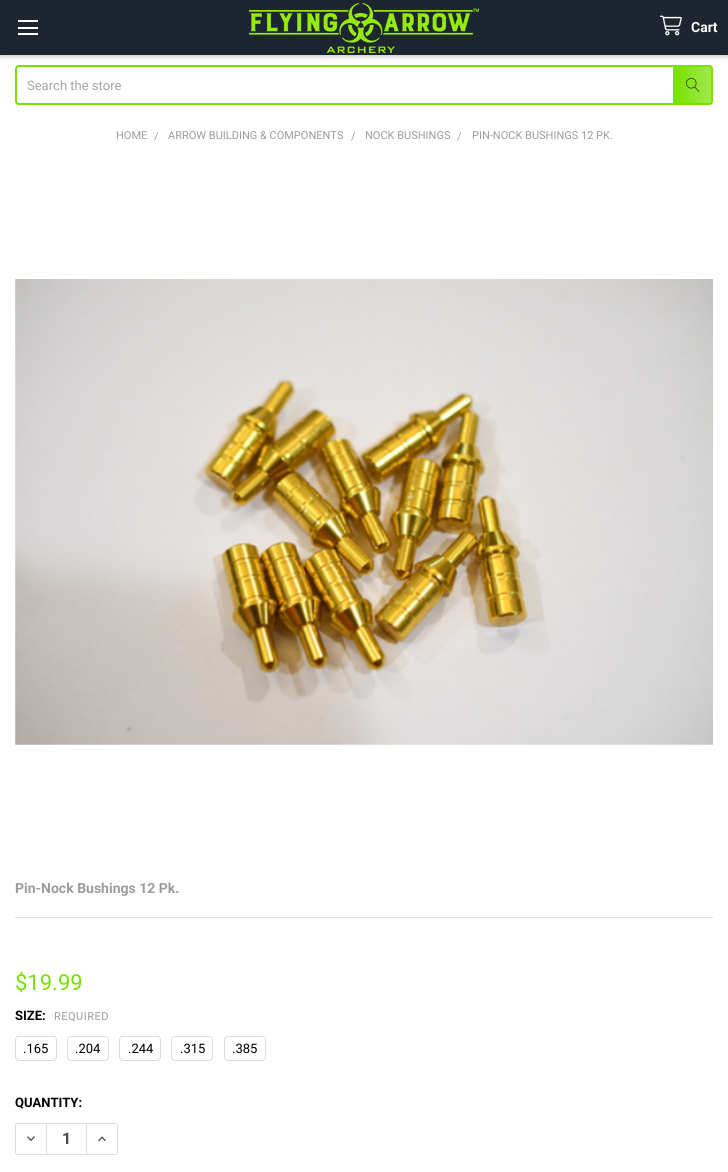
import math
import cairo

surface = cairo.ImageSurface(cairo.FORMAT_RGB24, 728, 1172)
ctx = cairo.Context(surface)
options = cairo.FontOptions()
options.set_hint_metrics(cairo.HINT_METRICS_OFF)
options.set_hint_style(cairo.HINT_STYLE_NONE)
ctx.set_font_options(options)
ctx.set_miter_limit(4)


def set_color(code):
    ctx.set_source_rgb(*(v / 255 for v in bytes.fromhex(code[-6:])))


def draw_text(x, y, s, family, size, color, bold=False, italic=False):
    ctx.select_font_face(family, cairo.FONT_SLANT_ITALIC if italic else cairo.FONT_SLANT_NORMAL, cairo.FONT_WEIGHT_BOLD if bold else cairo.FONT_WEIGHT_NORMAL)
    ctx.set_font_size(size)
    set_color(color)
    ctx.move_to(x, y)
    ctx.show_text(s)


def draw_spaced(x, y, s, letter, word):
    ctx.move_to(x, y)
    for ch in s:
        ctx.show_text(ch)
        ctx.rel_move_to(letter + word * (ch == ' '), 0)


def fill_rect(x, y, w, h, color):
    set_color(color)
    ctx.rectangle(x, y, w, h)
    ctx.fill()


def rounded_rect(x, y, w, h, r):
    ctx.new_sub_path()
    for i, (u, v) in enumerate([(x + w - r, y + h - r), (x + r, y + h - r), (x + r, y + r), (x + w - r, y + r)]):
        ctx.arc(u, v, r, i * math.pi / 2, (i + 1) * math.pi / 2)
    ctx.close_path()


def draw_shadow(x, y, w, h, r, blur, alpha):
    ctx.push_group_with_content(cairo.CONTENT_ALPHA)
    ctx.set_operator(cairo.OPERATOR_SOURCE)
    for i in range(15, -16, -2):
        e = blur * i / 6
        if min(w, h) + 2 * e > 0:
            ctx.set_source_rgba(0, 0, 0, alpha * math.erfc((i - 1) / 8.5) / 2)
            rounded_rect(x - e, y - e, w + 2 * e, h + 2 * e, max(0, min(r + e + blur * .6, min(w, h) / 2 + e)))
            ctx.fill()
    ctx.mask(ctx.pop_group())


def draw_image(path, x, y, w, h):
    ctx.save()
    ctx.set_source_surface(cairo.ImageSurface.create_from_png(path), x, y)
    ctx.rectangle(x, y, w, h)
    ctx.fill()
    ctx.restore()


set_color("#ffffff")
ctx.paint()
rounded_rect(16, 66, 696, 38, 3)
set_color("#78e100")
ctx.stroke()
gradient = cairo.LinearGradient(673, 85, 713, 85)
gradient.add_color_stop_rgba(0, 0.471, 0.882, 0, 1)
gradient.add_color_stop_rgba(1, 0.471, 0.882, 0, 0.7)
ctx.set_source(gradient)
ctx.new_path()
ctx.move_to(673, 65)
ctx.line_to(709, 65)
ctx.curve_to(711, 65, 713, 67, 713, 69)
ctx.line_to(713, 101)
ctx.curve_to(713, 103, 711, 105, 709, 105)
ctx.line_to(673, 105)
ctx.close_path()
ctx.fill()
set_color("#000000")
draw_shadow(0, 2, 728, 55, 0, 2.5, 0.2)
fill_rect(0, 0, 728, 55, "#1c2530")
fill_rect(18, 27, 20, 2, "#ffffff")
fill_rect(18, 20, 20, 2, "#ffffff")
fill_rect(18, 33, 20, 2, "#ffffff")
draw_image("assets/img1.png", 249, 3, 230, 50)
draw_image("assets/img2.png", 660, 15, 22, 21)
draw_text(691, 32, "Cart", "Roboto", 14, "#ffffff", bold=True)
draw_text(27, 90, "Search the store", "Roboto", 13, "#a5a5a5")
draw_image("assets/img3.png", 686, 78, 14, 14)
draw_text(116, 139, "HOME", "Roboto", 11, "#9c9c9c")
draw_text(154, 140, "/", "Roboto", 11, "#9c9c9c")
draw_text(168, 139, "ARROW BUILDING & COMPONENTS", "Roboto", 11, "#9c9c9c")
draw_text(351, 140, "/", "Roboto", 11, "#9c9c9c")
draw_text(365, 139, "NOCK BUSHINGS", "Roboto", 11, "#9c9c9c")
draw_text(457, 140, "/", "Roboto", 11, "#9c9c9c")
draw_text(472, 139, "PIN-NOCK BUSHINGS 12 PK.", "Roboto", 11, "#9c9c9c")
draw_image("assets/img4.png", 15, 279, 698, 466)
draw_text(15, 893, "Pin-Nock Bushings 12 Pk.", "Roboto", 14, "#9c9c9c", bold=True)
fill_rect(15, 917, 698, 1, "#dcdcdc")
draw_text(15, 990, "$19.99", "Roboto", 22, "#78e100")
draw_text(15, 1020, "SIZE:", "Roboto", 13, "#000000", bold=True)
ctx.select_font_face("Roboto")
ctx.set_font_size(11)
set_color("#9c9c9c")
draw_spaced(54, 1020, "REQUIRED", 0.5, 0)
rounded_rect(15.5, 1036.5, 41, 24, 3.5)
set_color("#dcdcdc")
ctx.set_line_width(1)
ctx.stroke()
draw_text(23, 1053, ".165", "Roboto", 13, "#000000")
rounded_rect(67.5, 1036.5, 41, 24, 3.5)
set_color("#dcdcdc")
ctx.stroke()
draw_text(75, 1053, ".204", "Roboto", 13, "#000000")
rounded_rect(119.5, 1036.5, 41, 24, 3.5)
set_color("#dcdcdc")
ctx.stroke()
draw_text(128, 1053, ".244", "Roboto", 13, "#000000")
rounded_rect(171.5, 1036.5, 41, 24, 3.5)
set_color("#dcdcdc")
ctx.stroke()
draw_text(180, 1053, ".315", "Roboto", 13, "#000000")
rounded_rect(224.5, 1036.5, 41, 24, 3.5)
set_color("#dcdcdc")
ctx.stroke()
draw_text(232, 1053, ".385", "Roboto", 13, "#000000")
draw_text(15, 1107, "QUANTITY:", "Roboto", 13, "#000000", bold=True)
fill_rect(16, 1123, 101, 1, "#dcdcdc")
fill_rect(16, 1154, 101, 1, "#dcdcdc")
fill_rect(46, 1124, 1, 30, "#dcdcdc")
ctx.new_path()
ctx.move_to(15, 1125)
ctx.line_to(15, 1153)
ctx.line_to(16, 1154)
ctx.line_to(16, 1124)
ctx.curve_to(15.5, 1124.5, 15, 1124.5, 15, 1125)
ctx.close_path()
ctx.fill()
draw_image("assets/img5.png", 27, 1136, 8, 5)
draw_text(62, 1144, "1", "Roboto", 16, "#454545", bold=True)
set_color("#dcdcdc")
ctx.new_path()
ctx.move_to(118, 1153)
ctx.line_to(118, 1125)
ctx.line_to(117, 1124)
ctx.line_to(117, 1154)
ctx.curve_to(117.5, 1153.5, 118, 1153.5, 118, 1153)
ctx.close_path()
ctx.fill()
fill_rect(86, 1124, 1, 30, "#dcdcdc")
draw_image("assets/img6.png", 98, 1136, 8, 6)
surface.write_to_png("output.png")
